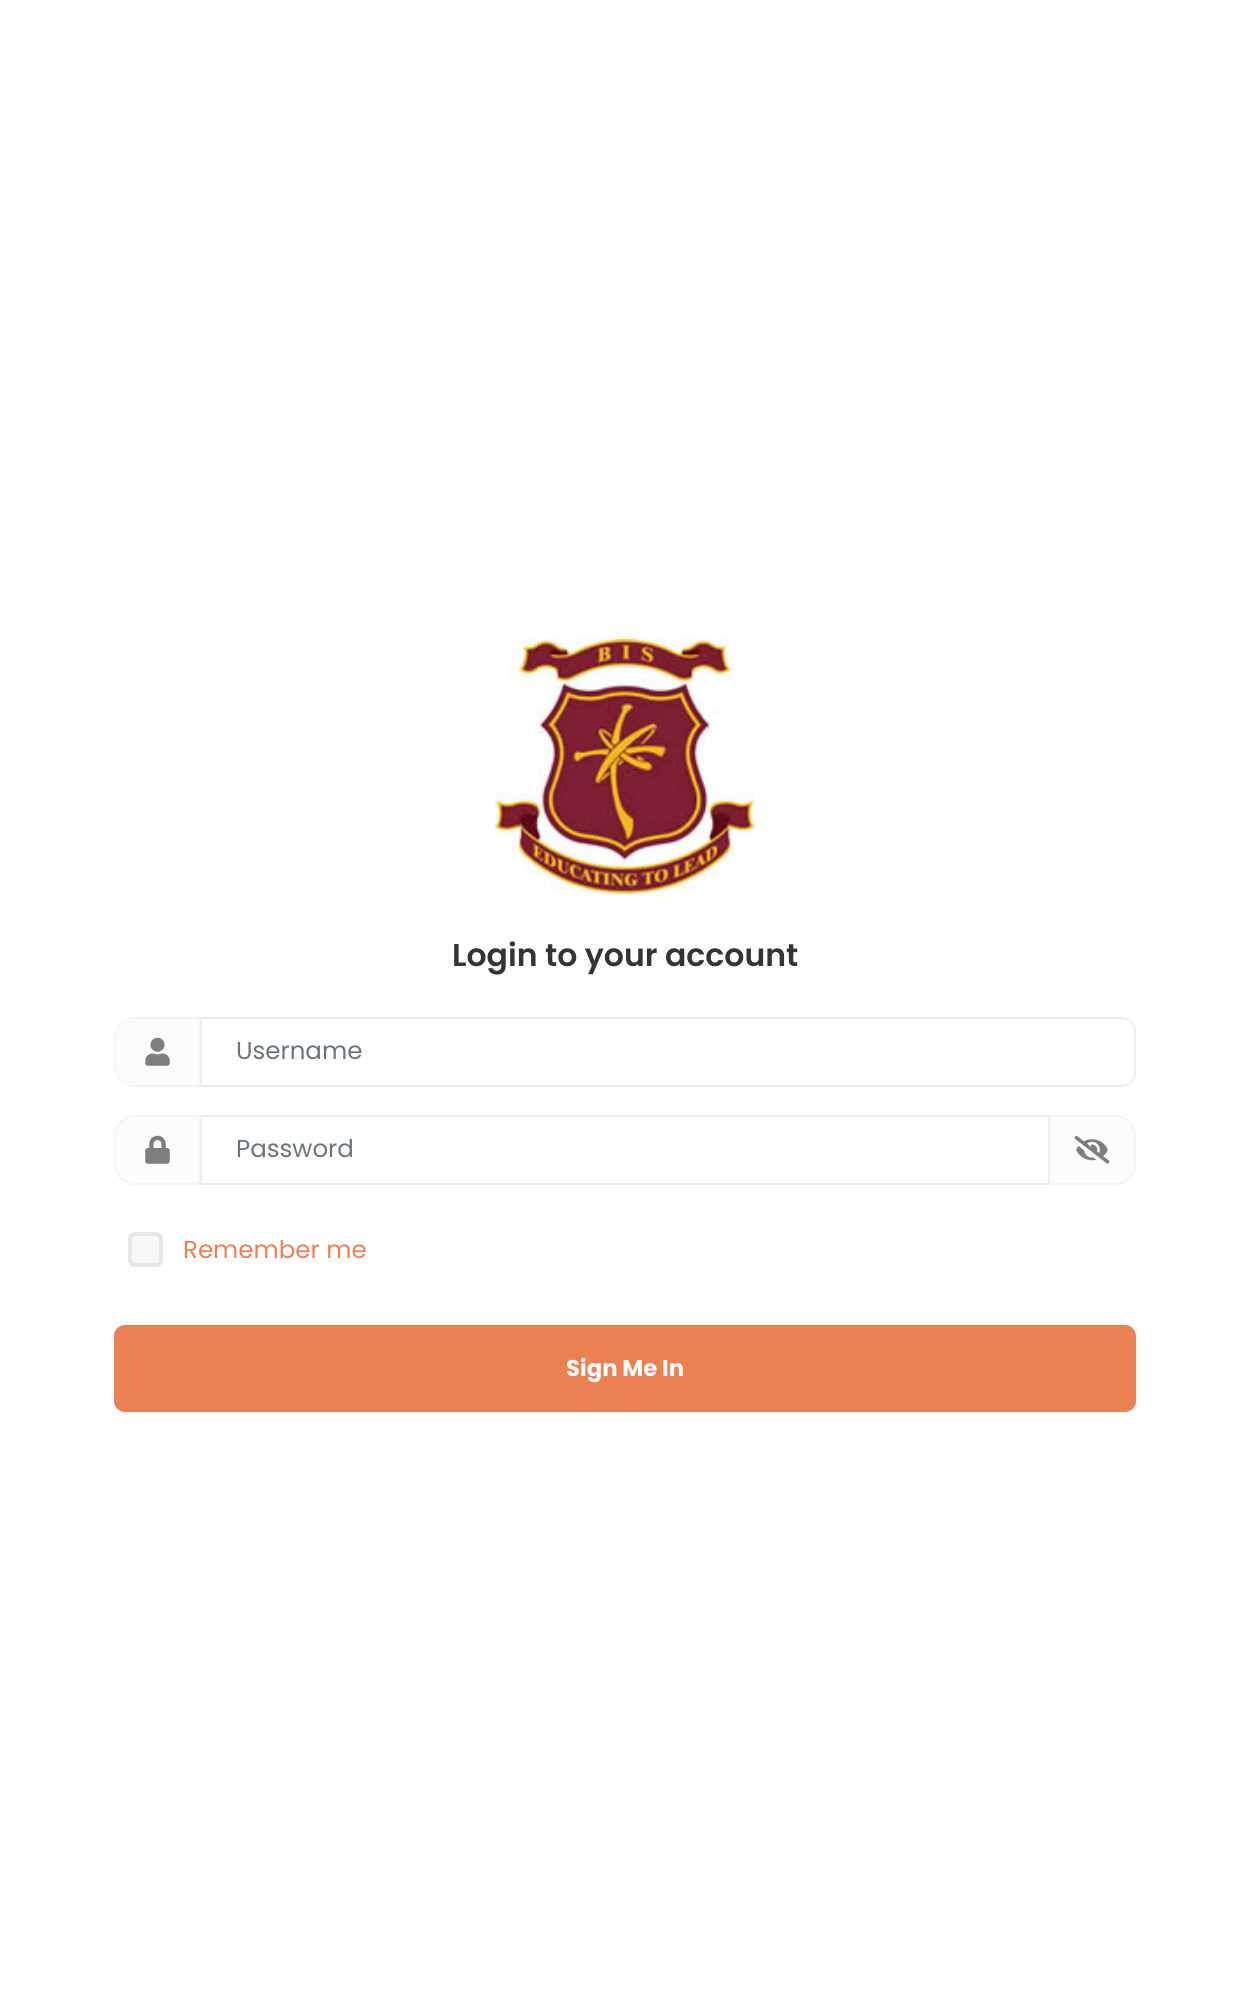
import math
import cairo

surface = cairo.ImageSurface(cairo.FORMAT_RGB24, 1248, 2008)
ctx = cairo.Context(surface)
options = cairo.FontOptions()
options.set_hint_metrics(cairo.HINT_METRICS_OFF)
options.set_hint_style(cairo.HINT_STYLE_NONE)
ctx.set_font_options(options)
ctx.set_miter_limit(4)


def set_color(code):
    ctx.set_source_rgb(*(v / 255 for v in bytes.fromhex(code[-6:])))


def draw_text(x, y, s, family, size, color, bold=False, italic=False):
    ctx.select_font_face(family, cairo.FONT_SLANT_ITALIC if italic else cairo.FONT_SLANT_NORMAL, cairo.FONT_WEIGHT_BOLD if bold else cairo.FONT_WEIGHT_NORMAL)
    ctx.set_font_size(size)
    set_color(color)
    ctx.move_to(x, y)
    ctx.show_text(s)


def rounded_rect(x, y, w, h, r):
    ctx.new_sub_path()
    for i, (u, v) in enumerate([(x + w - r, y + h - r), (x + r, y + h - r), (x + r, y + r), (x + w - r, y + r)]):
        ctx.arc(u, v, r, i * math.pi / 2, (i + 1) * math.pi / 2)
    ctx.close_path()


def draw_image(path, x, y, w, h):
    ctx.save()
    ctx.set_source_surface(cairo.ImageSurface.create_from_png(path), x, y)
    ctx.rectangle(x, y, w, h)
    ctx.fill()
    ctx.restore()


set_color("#ffffff")
ctx.paint()
draw_image("assets/img1.png", 495, 638, 260, 257)
draw_text(452, 966, "Login to your account", "Poppins SemiBold", 31.5, "#343434")
set_color("#fcfcfc")
ctx.new_path()
ctx.move_to(135, 1018)
ctx.line_to(200, 1018)
ctx.line_to(200, 1086)
ctx.line_to(135, 1086)
ctx.curve_to(124, 1086, 115, 1077, 115, 1066)
ctx.line_to(115, 1038)
ctx.curve_to(115, 1027, 124, 1018, 135, 1018)
ctx.close_path()
ctx.fill_preserve()
set_color("#f5f5f5")
ctx.stroke()
draw_image("assets/img2.png", 145, 1037, 25, 29)
set_color("#ffffff")
ctx.new_path()
ctx.move_to(201, 1018)
ctx.line_to(1122, 1018)
ctx.curve_to(1129, 1018, 1135, 1024, 1135, 1031)
ctx.line_to(1135, 1073)
ctx.curve_to(1135, 1080, 1129, 1086, 1122, 1086)
ctx.line_to(201, 1086)
ctx.close_path()
ctx.fill_preserve()
set_color("#eeeeee")
ctx.stroke()
draw_text(236, 1059, "Username", "Poppins", 24.5, "#6c757d")
set_color("#fcfcfc")
ctx.new_path()
ctx.move_to(135, 1116)
ctx.line_to(200, 1116)
ctx.line_to(200, 1184)
ctx.line_to(135, 1184)
ctx.curve_to(124, 1184, 115, 1175, 115, 1164)
ctx.line_to(115, 1136)
ctx.curve_to(115, 1125, 124, 1116, 135, 1116)
ctx.close_path()
ctx.fill_preserve()
set_color("#f5f5f5")
ctx.stroke()
draw_image("assets/img3.png", 145, 1135, 25, 29)
set_color("#fcfcfc")
ctx.new_path()
ctx.move_to(1049, 1116)
ctx.line_to(1115, 1116)
ctx.curve_to(1126, 1116, 1135, 1125, 1135, 1136)
ctx.line_to(1135, 1164)
ctx.curve_to(1135, 1175, 1126, 1184, 1115, 1184)
ctx.line_to(1049, 1184)
ctx.close_path()
ctx.fill_preserve()
set_color("#f5f5f5")
ctx.stroke()
ctx.rectangle(201, 1116, 848, 68)
set_color("#eeeeee")
ctx.stroke()
draw_text(236, 1157, "Password", "Poppins", 24.5, "#6c757d")
draw_image("assets/img4.png", 1074, 1135, 36, 29)
set_color("#f7f7f7")
rounded_rect(130, 1234, 31, 31, 5)
ctx.fill_preserve()
set_color("#e7e7e7")
ctx.set_line_width(4)
ctx.stroke()
draw_text(183, 1258, "Remember me", "Poppins", 24.5, "#eb8153")
rounded_rect(115, 1326, 1020, 85, 10)
ctx.fill_preserve()
ctx.set_line_width(2)
ctx.stroke()
draw_text(566, 1376, "Sign Me In", "Poppins", 22.75, "#ffffff", bold=True)
surface.write_to_png("output.png")
